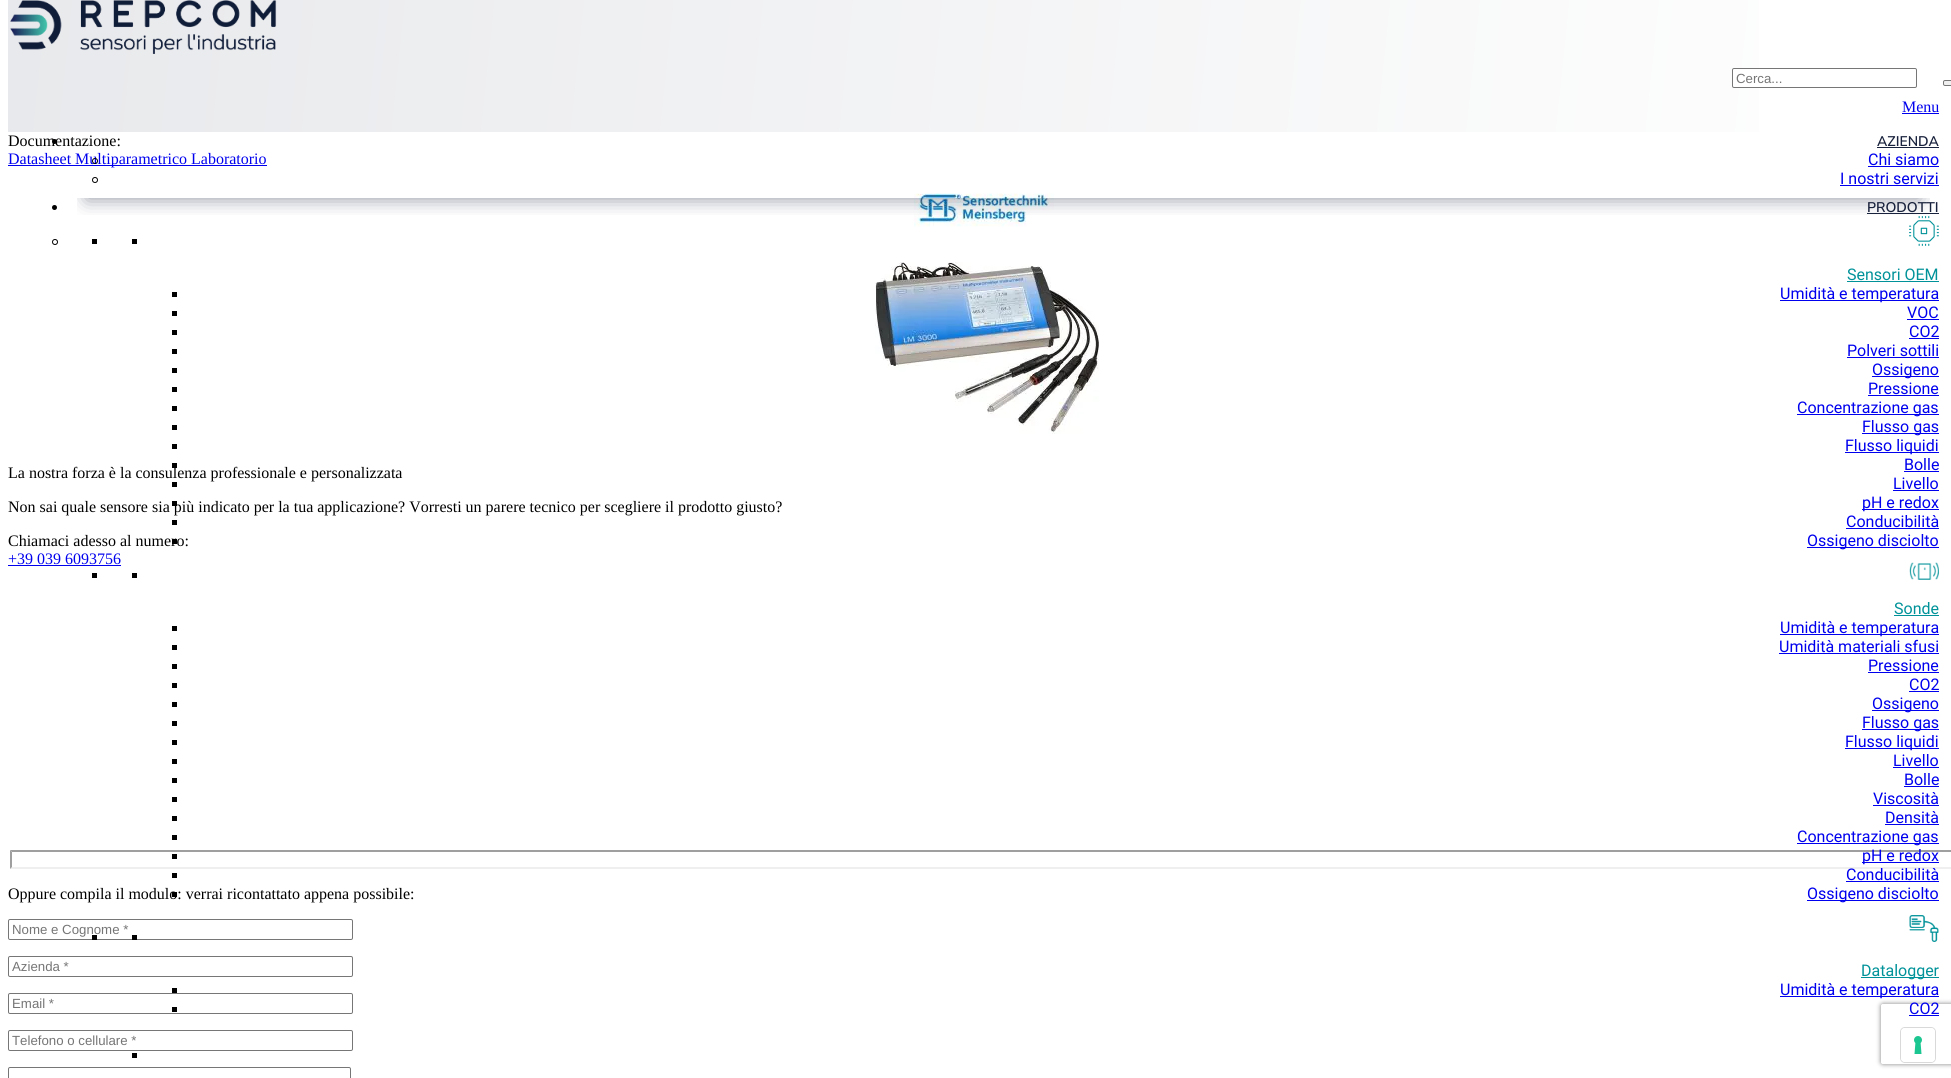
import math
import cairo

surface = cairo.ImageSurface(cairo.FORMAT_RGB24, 1951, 1078)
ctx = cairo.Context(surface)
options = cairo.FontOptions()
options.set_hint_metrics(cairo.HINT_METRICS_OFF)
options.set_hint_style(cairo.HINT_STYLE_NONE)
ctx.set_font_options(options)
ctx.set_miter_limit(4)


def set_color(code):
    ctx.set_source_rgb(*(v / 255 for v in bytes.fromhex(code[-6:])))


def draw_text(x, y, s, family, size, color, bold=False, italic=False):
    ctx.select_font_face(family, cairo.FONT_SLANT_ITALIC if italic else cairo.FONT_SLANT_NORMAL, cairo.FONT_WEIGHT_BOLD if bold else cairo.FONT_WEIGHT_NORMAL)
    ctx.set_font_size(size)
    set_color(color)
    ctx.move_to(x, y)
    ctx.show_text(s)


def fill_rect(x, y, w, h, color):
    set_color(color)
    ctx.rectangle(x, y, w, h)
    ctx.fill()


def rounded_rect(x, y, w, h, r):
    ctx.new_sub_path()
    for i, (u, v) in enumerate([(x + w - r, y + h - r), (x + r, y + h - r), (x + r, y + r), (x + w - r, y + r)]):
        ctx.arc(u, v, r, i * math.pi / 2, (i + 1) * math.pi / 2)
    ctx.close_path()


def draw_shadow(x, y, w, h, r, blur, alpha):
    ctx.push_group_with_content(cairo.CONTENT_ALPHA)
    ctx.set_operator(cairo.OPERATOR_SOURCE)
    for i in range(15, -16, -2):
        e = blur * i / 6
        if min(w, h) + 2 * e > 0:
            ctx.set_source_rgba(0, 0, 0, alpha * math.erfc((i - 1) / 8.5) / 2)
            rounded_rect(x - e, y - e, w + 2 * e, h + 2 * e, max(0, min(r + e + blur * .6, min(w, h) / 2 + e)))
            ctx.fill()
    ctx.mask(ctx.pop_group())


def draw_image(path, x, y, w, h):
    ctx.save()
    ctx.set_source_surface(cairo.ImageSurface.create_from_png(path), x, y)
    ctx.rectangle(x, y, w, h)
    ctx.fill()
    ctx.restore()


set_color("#ffffff")
ctx.paint()
draw_text(8, 146, "Documentazione:", "Liberation Serif", 16, "#000000")
fill_rect(8, 165, 259, 1, "#0000ee")
draw_text(8, 164, "Datasheet Multiparametrico Laboratorio", "Liberation Serif", 16, "#0000ee")
draw_image("assets/img1.png", 914, 193, 140, 34)
draw_image("assets/img2.png", 875, 262, 224, 172)
gradient = cairo.LinearGradient(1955, 168, 12, -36)
gradient.add_color_stop_rgba(0, 1, 1, 1, 1)
gradient.add_color_stop_rgba(1, 0.91, 0.914, 0.925, 1)
ctx.set_source(gradient)
ctx.rectangle(8, 0, 1751, 132)
ctx.fill()
draw_image("assets/img3.png", 10, 0, 267, 54)
set_color("#ffffff")
rounded_rect(1732.5, 68.5, 184, 19, 1.5)
ctx.fill_preserve()
set_color("#767676")
ctx.set_line_width(1)
ctx.stroke()
draw_text(1736, 83, "Cerca...", "Liberation Sans", 13.25, "#757575")
set_color("#efefef")
rounded_rect(1943.5, 80.5, 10, 5, 1.5)
ctx.fill_preserve()
set_color("#767676")
ctx.stroke()
draw_text(1902, 112, "Menu", "Liberation Serif", 16, "#0000ee")
fill_rect(1902, 113, 37, 1, "#0000ee")
set_color("#000000")
ctx.new_path()
ctx.arc(54.5, 141.5, 2.5, 0, 2 * math.pi)
ctx.fill()
draw_text(1877, 146, "AZIENDA", "Nunito Sans SemiBold", 14, "#19223c")
fill_rect(1877, 147, 62, 1, "#19223c")
ctx.save()
ctx.rectangle(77, 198, 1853, 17)
ctx.clip()
set_color("#19223c")
draw_shadow(88, 190, 1831, 8, 0, 10, 0.5)
ctx.restore()
ctx.arc(95, 161, 2.5, 0, 2 * math.pi)
set_color("#000000")
ctx.stroke()
draw_text(1868, 165, "Chi siamo", "Roboto", 16, "#0000ee")
fill_rect(1868, 166, 71, 1, "#0000ee")
ctx.new_path()
ctx.arc(95, 180, 2.5, 0, 2 * math.pi)
set_color("#000000")
ctx.stroke()
draw_text(1840, 184, "I nostri servizi", "Roboto", 16, "#0000ee")
fill_rect(1840, 185, 99, 1, "#0000ee")
set_color("#000000")
ctx.new_path()
ctx.arc(54.5, 207.5, 2.5, 0, 2 * math.pi)
ctx.fill()
draw_text(1867, 212, "PRODOTTI", "Nunito Sans SemiBold", 14, "#19223c")
fill_rect(1867, 213, 72, 1, "#19223c")
ctx.new_path()
ctx.arc(55, 242, 2.5, 0, 2 * math.pi)
set_color("#000000")
ctx.stroke()
fill_rect(92, 239, 5, 5, "#000000")
fill_rect(132, 239, 5, 5, "#000000")
draw_image("assets/img4.png", 1909, 216, 30, 30)
draw_text(1847, 280, "Sensori OEM", "Roboto", 16, "#009299")
fill_rect(1847, 281, 92, 1, "#009299")
fill_rect(172, 292, 5, 5, "#000000")
fill_rect(1780, 300, 159, 1, "#0000ee")
draw_text(1780, 299, "Umidità e temperatura", "Roboto", 16, "#0000ee")
fill_rect(172, 311, 5, 5, "#000000")
draw_text(1907, 318, "VOC", "Roboto", 16, "#0000ee")
fill_rect(1907, 319, 32, 1, "#0000ee")
fill_rect(172, 330, 5, 5, "#000000")
draw_text(1909, 337, "CO2", "Roboto", 16, "#0000ee")
fill_rect(1909, 338, 30, 1, "#0000ee")
fill_rect(172, 349, 5, 5, "#000000")
draw_text(1847, 356, "Polveri sottili", "Roboto", 16, "#0000ee")
fill_rect(1847, 357, 92, 1, "#0000ee")
fill_rect(172, 368, 5, 5, "#000000")
fill_rect(1872, 376, 67, 1, "#0000ee")
draw_text(1872, 375, "Ossigeno", "Roboto", 16, "#0000ee")
fill_rect(172, 387, 5, 5, "#000000")
draw_text(1868, 394, "Pressione", "Roboto", 16, "#0000ee")
fill_rect(1868, 395, 71, 1, "#0000ee")
fill_rect(172, 406, 5, 5, "#000000")
fill_rect(1797, 414, 142, 1, "#0000ee")
draw_text(1797, 413, "Concentrazione gas", "Roboto", 16, "#0000ee")
fill_rect(172, 425, 5, 5, "#000000")
fill_rect(1862, 433, 77, 1, "#0000ee")
draw_text(1862, 432, "Flusso gas", "Roboto", 16, "#0000ee")
fill_rect(172, 444, 5, 5, "#000000")
fill_rect(1845, 452, 94, 1, "#0000ee")
draw_text(1845, 451, "Flusso liquidi", "Roboto", 16, "#0000ee")
fill_rect(172, 463, 5, 5, "#000000")
draw_text(1904, 470, "Bolle", "Roboto", 16, "#0000ee")
fill_rect(1904, 471, 35, 1, "#0000ee")
fill_rect(172, 482, 5, 5, "#000000")
draw_text(1893, 489, "Livello", "Roboto", 16, "#0000ee")
fill_rect(1893, 490, 46, 1, "#0000ee")
fill_rect(172, 501, 5, 5, "#000000")
fill_rect(1862, 509, 77, 1, "#0000ee")
draw_text(1862, 508, "pH e redox", "Roboto", 16, "#0000ee")
fill_rect(172, 520, 5, 5, "#000000")
draw_text(1846, 527, "Conducibilità", "Roboto", 16, "#0000ee")
fill_rect(1846, 528, 93, 1, "#0000ee")
fill_rect(172, 539, 5, 5, "#000000")
fill_rect(1807, 547, 132, 1, "#0000ee")
draw_text(1807, 546, "Ossigeno disciolto", "Roboto", 16, "#0000ee")
fill_rect(92, 573, 5, 5, "#000000")
fill_rect(132, 573, 5, 5, "#000000")
draw_image("assets/img5.png", 1909, 562, 30, 18)
draw_text(1894, 614, "Sonde", "Roboto", 16, "#009299")
fill_rect(1894, 615, 45, 1, "#009299")
fill_rect(172, 626, 5, 5, "#000000")
fill_rect(1780, 634, 159, 1, "#0000ee")
draw_text(1780, 633, "Umidità e temperatura", "Roboto", 16, "#0000ee")
fill_rect(172, 645, 5, 5, "#000000")
draw_text(1779, 652, "Umidità materiali sfusi", "Roboto", 16, "#0000ee")
fill_rect(1779, 653, 160, 1, "#0000ee")
fill_rect(172, 664, 5, 5, "#000000")
draw_text(1868, 671, "Pressione", "Roboto", 16, "#0000ee")
fill_rect(1868, 672, 71, 1, "#0000ee")
fill_rect(172, 683, 5, 5, "#000000")
draw_text(1909, 690, "CO2", "Roboto", 16, "#0000ee")
fill_rect(1909, 691, 30, 1, "#0000ee")
fill_rect(172, 702, 5, 5, "#000000")
fill_rect(1872, 710, 67, 1, "#0000ee")
draw_text(1872, 709, "Ossigeno", "Roboto", 16, "#0000ee")
fill_rect(172, 721, 5, 5, "#000000")
fill_rect(1862, 729, 77, 1, "#0000ee")
draw_text(1862, 728, "Flusso gas", "Roboto", 16, "#0000ee")
fill_rect(172, 740, 5, 5, "#000000")
fill_rect(1845, 748, 94, 1, "#0000ee")
draw_text(1845, 747, "Flusso liquidi", "Roboto", 16, "#0000ee")
fill_rect(172, 759, 5, 5, "#000000")
draw_text(1893, 766, "Livello", "Roboto", 16, "#0000ee")
fill_rect(1893, 767, 46, 1, "#0000ee")
fill_rect(172, 778, 5, 5, "#000000")
draw_text(1904, 785, "Bolle", "Roboto", 16, "#0000ee")
fill_rect(1904, 786, 35, 1, "#0000ee")
fill_rect(172, 797, 5, 5, "#000000")
draw_text(1873, 804, "Viscosità", "Roboto", 16, "#0000ee")
fill_rect(1873, 805, 66, 1, "#0000ee")
fill_rect(172, 816, 5, 5, "#000000")
draw_text(1885, 823, "Densità", "Roboto", 16, "#0000ee")
fill_rect(1885, 824, 54, 1, "#0000ee")
fill_rect(172, 835, 5, 5, "#000000")
fill_rect(1797, 843, 142, 1, "#0000ee")
draw_text(1797, 842, "Concentrazione gas", "Roboto", 16, "#0000ee")
fill_rect(172, 854, 5, 5, "#000000")
fill_rect(1862, 862, 77, 1, "#0000ee")
set_color("#9f9f9f")
ctx.new_path()
ctx.move_to(10, 850)
ctx.line_to(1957, 850)
ctx.line_to(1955, 852)
ctx.line_to(12, 852)
ctx.close_path()
ctx.fill()
draw_text(1862, 861, "pH e redox", "Roboto", 16, "#0000ee")
fill_rect(172, 873, 5, 5, "#000000")
set_color("#efefef")
ctx.new_path()
ctx.move_to(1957, 869)
ctx.line_to(10, 869)
ctx.line_to(12, 867)
ctx.line_to(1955, 867)
ctx.close_path()
ctx.fill()
draw_text(1846, 880, "Conducibilità", "Roboto", 16, "#0000ee")
fill_rect(1846, 881, 93, 1, "#0000ee")
fill_rect(172, 892, 5, 5, "#000000")
fill_rect(1807, 900, 132, 1, "#0000ee")
draw_text(1807, 899, "Ossigeno disciolto", "Roboto", 16, "#0000ee")
rounded_rect(8.5, 919.5, 344, 20, 1.5)
set_color("#767676")
ctx.stroke()
draw_text(12, 934, "Nome e Cognome *", "Liberation Sans", 13.25, "#757575")
fill_rect(92, 935, 5, 5, "#000000")
fill_rect(132, 935, 5, 5, "#000000")
draw_image("assets/img6.png", 1909, 915, 30, 27)
fill_rect(1861, 977, 78, 1, "#009299")
draw_text(1861, 976, "Datalogger", "Roboto", 16, "#009299")
fill_rect(172, 988, 5, 5, "#000000")
ctx.save()
ctx.set_fill_rule(cairo.FILL_RULE_EVEN_ODD)
ctx.new_path()
ctx.move_to(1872, 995)
ctx.line_to(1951, 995)
ctx.line_to(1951, 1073)
ctx.line_to(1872, 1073)
ctx.close_path()
ctx.move_to(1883, 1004)
ctx.line_to(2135, 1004)
ctx.curve_to(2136, 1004, 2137, 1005, 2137, 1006)
ctx.line_to(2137, 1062)
ctx.curve_to(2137, 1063, 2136, 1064, 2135, 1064)
ctx.line_to(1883, 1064)
ctx.curve_to(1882, 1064, 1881, 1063, 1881, 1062)
ctx.line_to(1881, 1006)
ctx.curve_to(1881, 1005, 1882, 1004, 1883, 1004)
ctx.close_path()
ctx.clip()
set_color("#808080")
draw_shadow(1881, 1004, 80, 60, 2, 2.5, 1)
ctx.restore()
fill_rect(1780, 996, 159, 1, "#0000ee")
draw_text(1780, 995, "Umidità e temperatura", "Roboto", 16, "#0000ee")
rounded_rect(8.5, 993.5, 344, 20, 1.5)
set_color("#767676")
ctx.stroke()
fill_rect(172, 1007, 5, 5, "#000000")
draw_text(1909, 1014, "CO2", "Roboto", 16, "#0000ee")
fill_rect(1909, 1015, 30, 1, "#0000ee")
fill_rect(132, 1053, 5, 5, "#000000")
draw_text(8, 478, "La nostra forza è la consulenza professionale e personalizzata", "Liberation Serif", 16, "#000000")
draw_text(8, 512, "Non sai quale sensore sia più indicato per la tua applicazione? Vorresti un parere tecnico per scegliere il prodotto giusto?", "Liberation Serif", 16, "#000000")
draw_text(8, 546, "Chiamaci adesso al numero:", "Liberation Serif", 16, "#000000")
draw_text(8, 564, "+39 039 6093756", "Liberation Serif", 16, "#0000ee")
fill_rect(8, 565, 113, 1, "#0000ee")
set_color("#9f9f9f")
ctx.new_path()
ctx.move_to(10, 869)
ctx.line_to(10, 850)
ctx.line_to(12, 852)
ctx.line_to(12, 867)
ctx.close_path()
ctx.fill()
draw_text(8, 899, "Oppure compila il modulo: verrai ricontattato appena possibile:", "Liberation Serif", 16, "#000000")
rounded_rect(8.5, 956.5, 344, 20, 1.5)
set_color("#767676")
ctx.stroke()
draw_text(12, 971, "Azienda *", "Liberation Sans", 13.25, "#757575")
draw_text(12, 1008, "Email *", "Liberation Sans", 13.25, "#757575")
rounded_rect(8.5, 1030.5, 344, 20, 1.5)
set_color("#767676")
ctx.stroke()
draw_text(12, 1045, "Telefono o cellulare *", "Liberation Sans", 13.25, "#757575")
rounded_rect(8.5, 1067.5, 342, 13, 1.5)
set_color("#767676")
ctx.stroke()
rounded_rect(1900.5, 1027.5, 35, 35, 4.5)
set_color("#d9d9d9")
ctx.stroke()
set_color("#ffffff")
rounded_rect(1901, 1028, 34, 34, 4)
ctx.fill()
draw_image("assets/img7.png", 1914, 1036, 8, 18)
surface.write_to_png("output.png")
